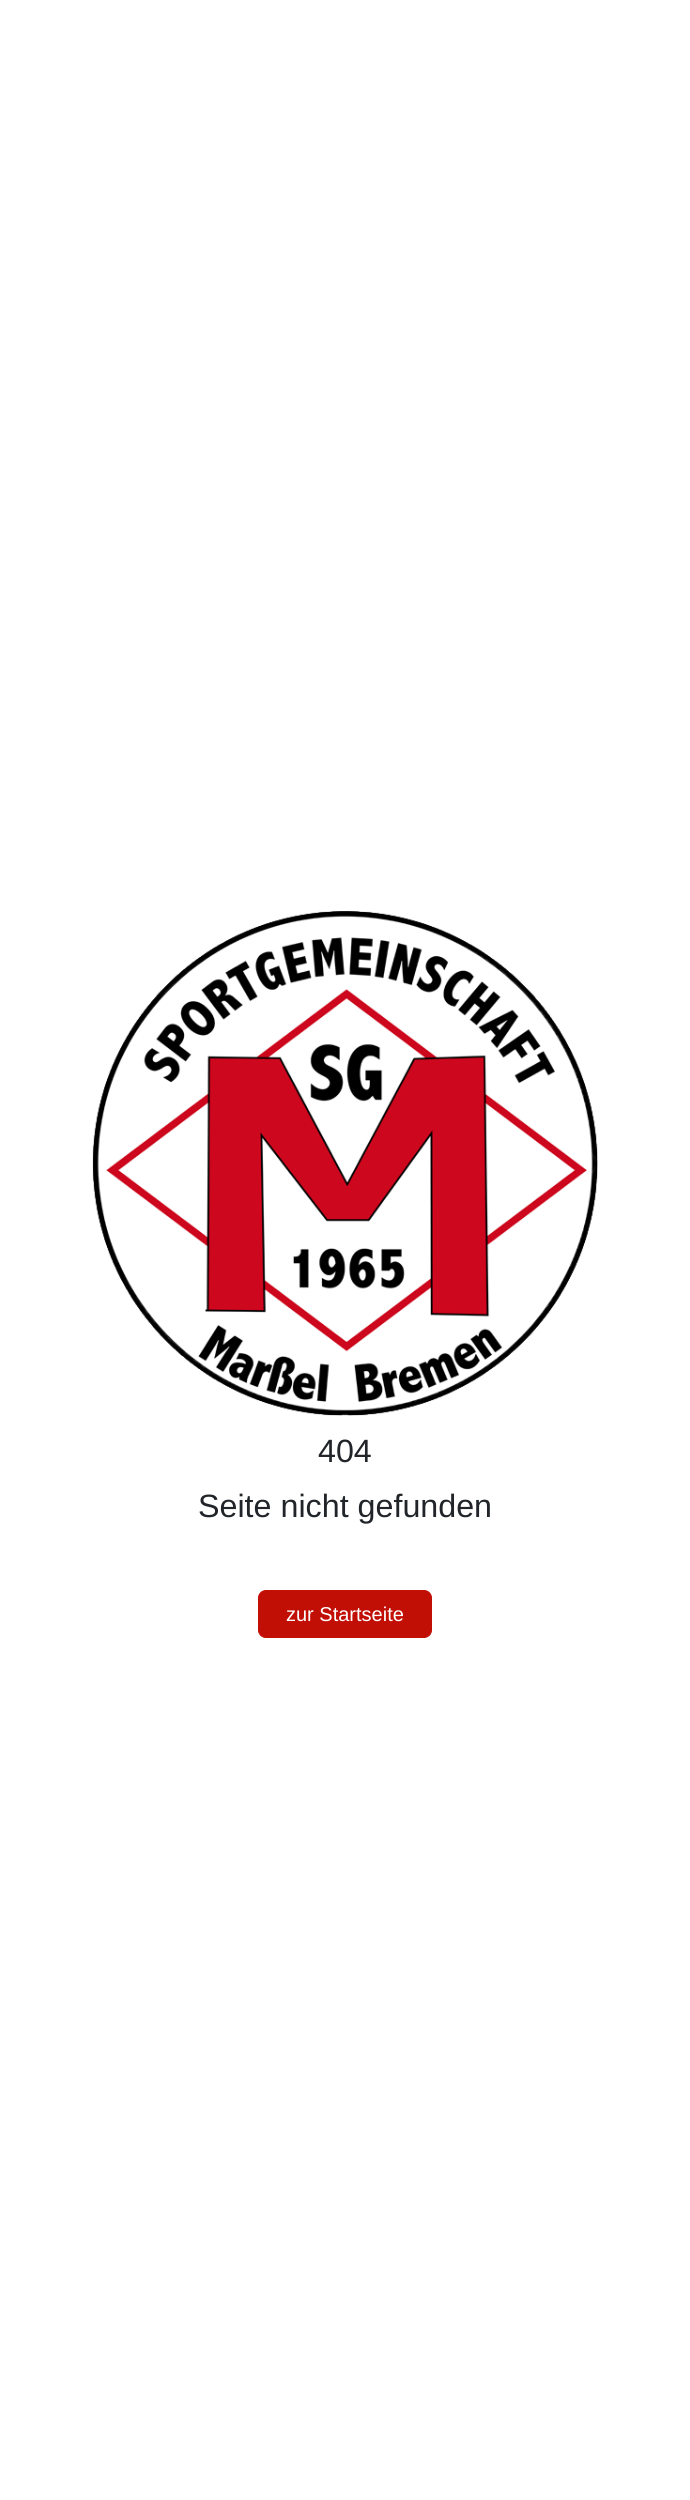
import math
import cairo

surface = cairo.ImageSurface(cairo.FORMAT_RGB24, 690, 2500)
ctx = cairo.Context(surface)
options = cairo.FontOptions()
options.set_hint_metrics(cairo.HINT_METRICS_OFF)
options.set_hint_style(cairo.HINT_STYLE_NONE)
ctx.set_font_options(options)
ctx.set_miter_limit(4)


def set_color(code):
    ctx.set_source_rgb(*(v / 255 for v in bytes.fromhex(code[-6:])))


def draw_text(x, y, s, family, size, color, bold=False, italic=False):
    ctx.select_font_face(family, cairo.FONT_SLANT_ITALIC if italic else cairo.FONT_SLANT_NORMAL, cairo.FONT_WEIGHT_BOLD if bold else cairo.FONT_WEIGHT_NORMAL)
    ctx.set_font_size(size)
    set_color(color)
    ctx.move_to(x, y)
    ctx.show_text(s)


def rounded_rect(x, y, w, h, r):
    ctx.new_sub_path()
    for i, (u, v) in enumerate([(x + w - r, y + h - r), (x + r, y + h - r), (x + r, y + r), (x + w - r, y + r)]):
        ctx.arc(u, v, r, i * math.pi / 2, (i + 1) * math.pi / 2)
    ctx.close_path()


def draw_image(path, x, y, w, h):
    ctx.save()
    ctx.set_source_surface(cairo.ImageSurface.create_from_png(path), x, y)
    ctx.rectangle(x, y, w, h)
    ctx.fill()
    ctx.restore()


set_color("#ffffff")
ctx.paint()
draw_image("assets/img1.png", 92, 911, 506, 505)
draw_text(318, 1462, "404", "Liberation Sans", 32.25, "#212529")
draw_text(198, 1517, "Seite nicht gefunden", "Liberation Sans", 32.25, "#212529")
set_color("#c10f05")
rounded_rect(258.5, 1590.5, 173, 47, 7.5)
ctx.fill_preserve()
ctx.set_line_width(1)
ctx.stroke()
draw_text(286, 1621, "zur Startseite", "Liberation Sans", 20, "#ffffff")
surface.write_to_png("output.png")
